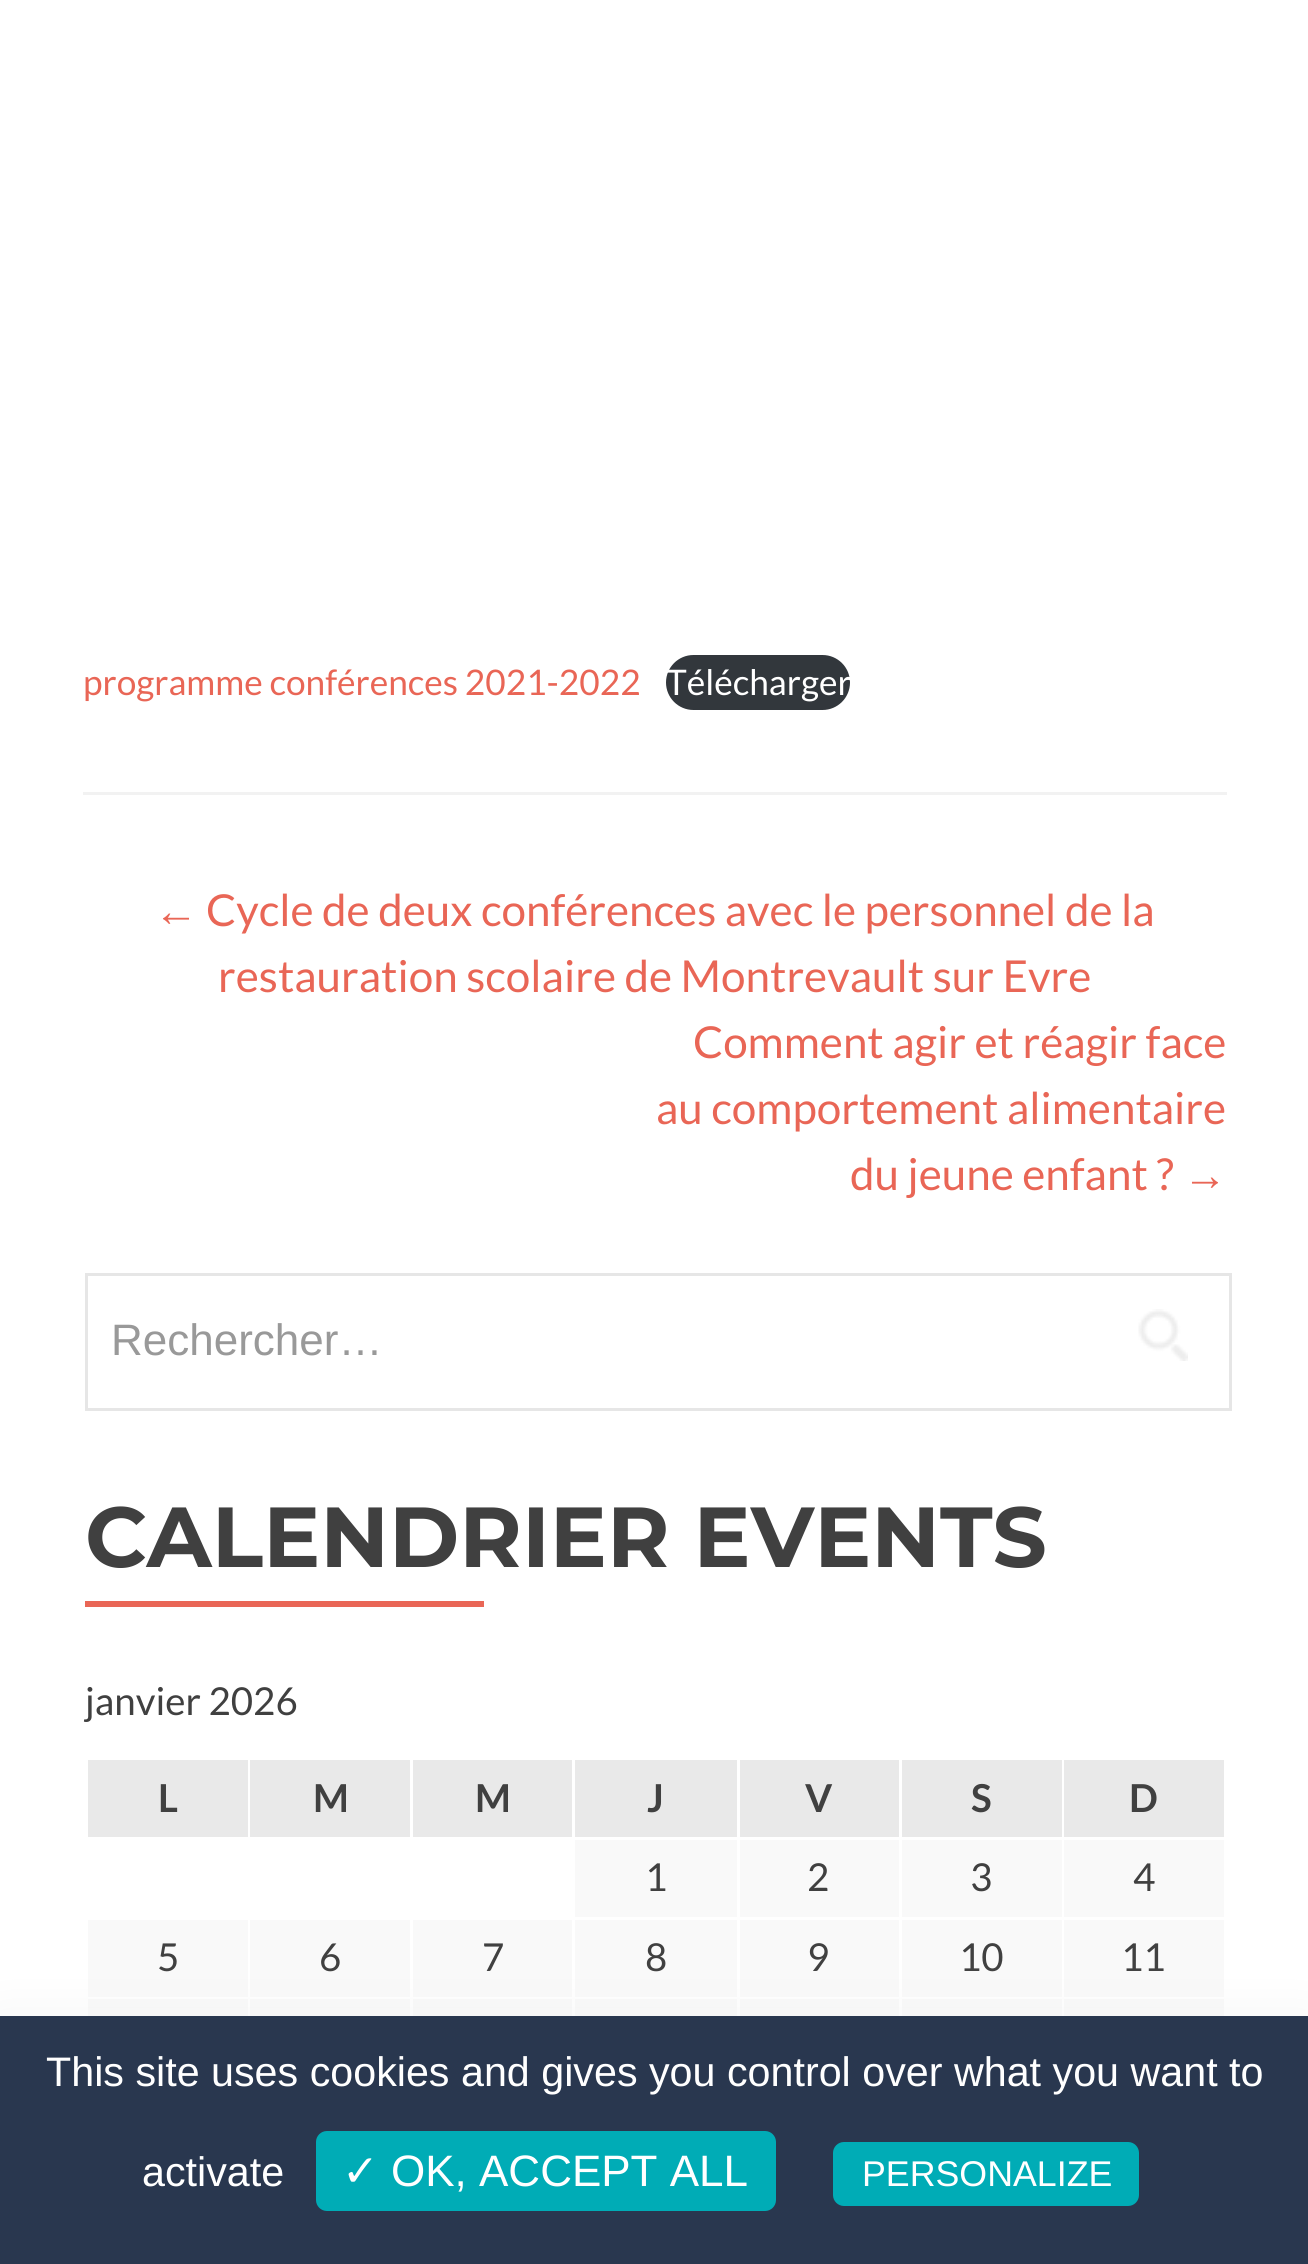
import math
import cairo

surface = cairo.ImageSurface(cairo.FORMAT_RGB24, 1308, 2264)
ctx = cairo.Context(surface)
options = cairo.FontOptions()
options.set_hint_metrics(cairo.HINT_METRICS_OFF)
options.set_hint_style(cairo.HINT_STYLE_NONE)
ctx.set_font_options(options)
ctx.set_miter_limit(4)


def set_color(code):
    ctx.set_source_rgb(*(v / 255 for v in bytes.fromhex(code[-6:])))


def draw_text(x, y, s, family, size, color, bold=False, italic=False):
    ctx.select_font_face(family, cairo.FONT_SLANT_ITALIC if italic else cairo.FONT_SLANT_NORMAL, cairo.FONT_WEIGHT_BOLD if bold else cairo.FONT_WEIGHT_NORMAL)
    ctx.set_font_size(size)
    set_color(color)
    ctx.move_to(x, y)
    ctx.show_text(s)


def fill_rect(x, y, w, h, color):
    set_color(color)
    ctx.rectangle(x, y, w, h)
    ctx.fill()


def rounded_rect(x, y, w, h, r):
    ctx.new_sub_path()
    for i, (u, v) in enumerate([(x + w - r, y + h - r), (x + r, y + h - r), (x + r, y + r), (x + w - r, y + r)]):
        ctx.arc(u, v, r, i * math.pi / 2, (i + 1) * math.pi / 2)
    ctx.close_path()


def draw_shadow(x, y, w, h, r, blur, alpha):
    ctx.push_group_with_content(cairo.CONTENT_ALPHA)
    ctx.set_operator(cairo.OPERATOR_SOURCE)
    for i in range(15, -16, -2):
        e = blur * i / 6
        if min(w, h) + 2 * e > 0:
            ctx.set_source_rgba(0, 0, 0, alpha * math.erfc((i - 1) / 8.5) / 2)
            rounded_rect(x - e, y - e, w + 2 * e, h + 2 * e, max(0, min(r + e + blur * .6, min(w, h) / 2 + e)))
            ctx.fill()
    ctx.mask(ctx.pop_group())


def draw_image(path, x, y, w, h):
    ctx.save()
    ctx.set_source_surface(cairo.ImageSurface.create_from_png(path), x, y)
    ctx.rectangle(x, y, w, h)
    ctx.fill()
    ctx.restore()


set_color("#ffffff")
ctx.paint()
fill_rect(83, 792, 1144, 3, "#f2f2f2")
draw_text(83, 695, "programme conférences 2021-2022", "Lato", 35.25, "#e96656")
set_color("#32373c")
rounded_rect(666, 655, 184, 55, 27.5)
ctx.fill()
draw_text(666, 695, "Télécharger", "Lato", 35.25, "#ffffff")
draw_text(154, 926, "←", "Liberation Sans", 44, "#e96656")
draw_text(206, 926, "Cycle de deux conférences avec le personnel de la", "Lato", 44, "#e96656")
draw_text(218, 992, "restauration scolaire de Montrevault sur Evre", "Lato", 44, "#e96656")
draw_text(693, 1058, "Comment agir et réagir face", "Lato", 44, "#e96656")
draw_text(656, 1124, "au comportement alimentaire", "Lato", 44, "#e96656")
draw_text(850, 1190, "du jeune enfant ?", "Lato", 44, "#e96656")
draw_text(1183, 1190, "→", "Liberation Sans", 44, "#e96656")
ctx.rectangle(86.5, 1274.5, 1144, 135)
set_color("#e6e6e6")
ctx.set_line_width(3)
ctx.stroke()
draw_text(111, 1355, "Rechercher…", "Liberation Sans", 44, "#999999")
draw_image("assets/img1.png", 1138, 1309, 50, 52)
draw_text(85, 1567, "CALENDRIER EVENTS", "Montserrat", 85.1, "#404040", bold=True)
fill_rect(85, 1601, 399, 6, "#e96656")
draw_text(85, 1715, "janvier 2026", "Lato", 38.5, "#404040")
fill_rect(88, 1760, 160, 77, "#e9e9e9")
draw_text(158, 1812, "L", "Lato", 38.5, "#404040", bold=True)
fill_rect(250, 1760, 160, 77, "#e9e9e9")
draw_text(313, 1812, "M", "Lato", 38.5, "#404040", bold=True)
fill_rect(413, 1760, 159, 77, "#e9e9e9")
draw_text(475, 1812, "M", "Lato", 38.5, "#404040", bold=True)
fill_rect(575, 1760, 162, 77, "#e9e9e9")
draw_text(647, 1812, "J", "Lato", 38.5, "#404040", bold=True)
fill_rect(740, 1760, 159, 77, "#e9e9e9")
draw_text(805, 1812, "V", "Lato", 38.5, "#404040", bold=True)
fill_rect(902, 1760, 160, 77, "#e9e9e9")
draw_text(971, 1812, "S", "Lato", 38.5, "#404040", bold=True)
fill_rect(1064, 1760, 160, 77, "#e9e9e9")
draw_text(1129, 1812, "D", "Lato", 38.5, "#404040", bold=True)
fill_rect(575, 1840, 162, 77, "#f9f9f9")
draw_text(645, 1891, "1", "Lato", 38.5, "#404040")
fill_rect(740, 1840, 159, 77, "#f9f9f9")
draw_text(807, 1891, "2", "Lato", 38.5, "#404040")
fill_rect(902, 1840, 160, 77, "#f9f9f9")
draw_text(970, 1891, "3", "Lato", 38.5, "#404040")
fill_rect(1064, 1840, 160, 77, "#f9f9f9")
draw_text(1133, 1891, "4", "Lato", 38.5, "#404040")
fill_rect(88, 1920, 160, 77, "#f9f9f9")
draw_text(157, 1971, "5", "Lato", 38.5, "#404040")
fill_rect(250, 1920, 160, 77, "#f9f9f9")
draw_text(319, 1971, "6", "Lato", 38.5, "#404040")
fill_rect(413, 1920, 159, 77, "#f9f9f9")
draw_text(482, 1971, "7", "Lato", 38.5, "#404040")
fill_rect(575, 1920, 162, 77, "#f9f9f9")
draw_text(645, 1971, "8", "Lato", 38.5, "#404040")
fill_rect(740, 1920, 159, 77, "#f9f9f9")
draw_text(807, 1971, "9", "Lato", 38.5, "#404040")
fill_rect(902, 1920, 160, 77, "#f9f9f9")
draw_text(959, 1971, "10", "Lato", 38.5, "#404040")
fill_rect(1064, 1920, 160, 77, "#f9f9f9")
draw_text(1121, 1971, "11", "Lato", 38.5, "#404040")
fill_rect(88, 1999, 160, 17, "#f9f9f9")
fill_rect(250, 1999, 160, 17, "#f9f9f9")
fill_rect(413, 1999, 159, 17, "#f9f9f9")
fill_rect(575, 1999, 162, 17, "#f9f9f9")
fill_rect(740, 1999, 159, 17, "#f9f9f9")
fill_rect(902, 1999, 160, 17, "#f9f9f9")
fill_rect(1064, 1999, 160, 17, "#f9f9f9")
set_color("#eeeeee")
draw_shadow(0, 2030, 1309, 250, 0, 27.5, 1)
fill_rect(0, 2016, 1308, 248, "#29374f")
draw_text(46, 2086, "This site uses cookies and gives you control over what you want to", "Liberation Sans", 41.25, "#ffffff")
draw_text(142, 2186, "activate", "Liberation Sans", 41.25, "#ffffff")
set_color("#00acb6")
rounded_rect(316, 2131, 460, 80, 11)
ctx.fill()
draw_text(342, 2186, "✓", "DejaVu Sans", 44, "#ffffff")
draw_text(391, 2186, "OK, ACCEPT ALL", "Liberation Sans", 44, "#ffffff")
set_color("#00acb6")
rounded_rect(833, 2142, 306, 64, 11)
ctx.fill()
draw_text(862, 2186, "PERSONALIZE", "Liberation Sans", 35.75, "#ffffff")
surface.write_to_png("output.png")
